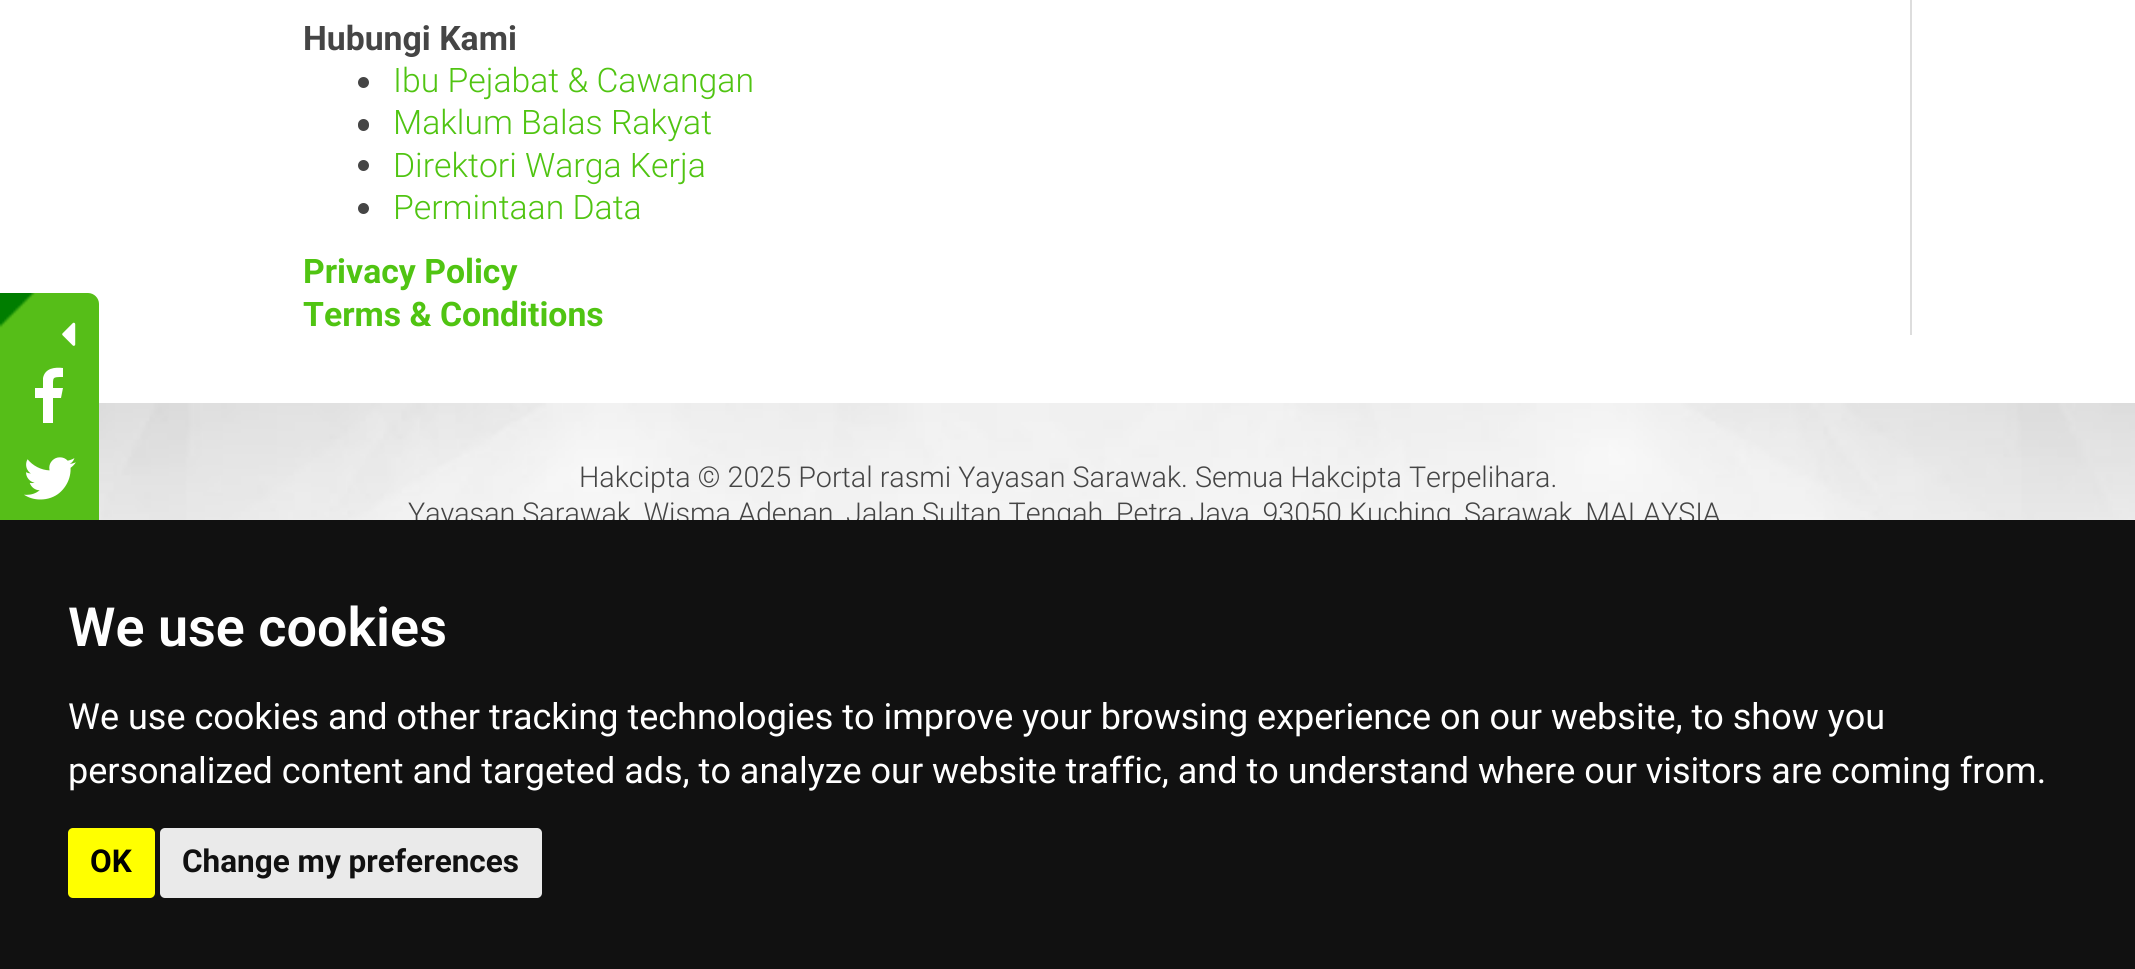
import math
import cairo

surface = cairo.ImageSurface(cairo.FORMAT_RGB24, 2135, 969)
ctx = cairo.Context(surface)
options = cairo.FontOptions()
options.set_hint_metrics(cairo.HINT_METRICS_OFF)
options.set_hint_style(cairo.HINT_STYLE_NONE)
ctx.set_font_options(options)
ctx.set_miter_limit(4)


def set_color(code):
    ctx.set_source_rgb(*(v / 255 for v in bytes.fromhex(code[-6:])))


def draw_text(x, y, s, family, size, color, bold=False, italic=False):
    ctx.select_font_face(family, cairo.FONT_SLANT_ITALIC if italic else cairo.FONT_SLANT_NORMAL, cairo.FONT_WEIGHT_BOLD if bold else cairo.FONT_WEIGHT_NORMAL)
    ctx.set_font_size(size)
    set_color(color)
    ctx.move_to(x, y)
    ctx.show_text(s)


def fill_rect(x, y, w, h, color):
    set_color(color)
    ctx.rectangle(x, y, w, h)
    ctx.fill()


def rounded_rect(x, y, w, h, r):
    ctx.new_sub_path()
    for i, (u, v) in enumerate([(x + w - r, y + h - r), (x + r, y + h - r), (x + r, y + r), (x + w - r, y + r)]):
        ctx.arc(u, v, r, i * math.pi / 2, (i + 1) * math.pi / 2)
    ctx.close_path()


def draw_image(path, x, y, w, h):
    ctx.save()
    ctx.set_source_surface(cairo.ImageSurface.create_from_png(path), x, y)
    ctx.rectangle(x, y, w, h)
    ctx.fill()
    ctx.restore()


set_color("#ffffff")
ctx.paint()
fill_rect(1910, 0, 2, 335, "#dddddd")
draw_text(303, 50, "Hubungi Kami", "Roboto", 33.75, "#454545", bold=True)
ctx.new_path()
ctx.arc(363.5, 82.5, 5.5, 0, 2 * math.pi)
ctx.fill()
draw_text(393, 92, "Ibu Pejabat & Cawangan", "Roboto Light", 33.75, "#50c412")
set_color("#454545")
rounded_rect(358, 119, 11, 12, 5.5)
ctx.fill()
draw_text(393, 134, "Maklum Balas Rakyat", "Roboto Light", 33.75, "#50c412")
set_color("#454545")
ctx.new_path()
ctx.arc(363.5, 165.5, 5.5, 0, 2 * math.pi)
ctx.fill()
draw_text(393, 177, "Direktori Warga Kerja", "Roboto Light", 33.75, "#50c412")
set_color("#454545")
ctx.new_path()
ctx.arc(363.5, 208.5, 5.5, 0, 2 * math.pi)
ctx.fill()
draw_text(393, 219, "Permintaan Data", "Roboto Light", 33.75, "#50c412")
draw_text(303, 283, "Privacy Policy", "Roboto", 33.75, "#50c412", bold=True)
draw_text(303, 326, "Terms & Conditions", "Roboto", 33.75, "#50c412", bold=True)
set_color("#56be18")
ctx.new_path()
ctx.move_to(0, 293)
ctx.line_to(88, 293)
ctx.curve_to(94, 293, 99, 298, 99, 304)
ctx.line_to(99, 828)
ctx.curve_to(99, 834, 94, 839, 88, 839)
ctx.line_to(0, 839)
ctx.close_path()
ctx.fill()
draw_image("assets/img1.png", 0, 293, 35, 35)
draw_image("assets/img2.png", 62, 322, 14, 24)
set_color("#ffffff")
ctx.new_path()
ctx.move_to(63, 368)
ctx.line_to(63, 377)
ctx.curve_to(52, 377, 53, 377, 53, 388)
ctx.line_to(63, 388)
ctx.line_to(61, 398)
ctx.line_to(53, 398)
ctx.line_to(53, 423)
ctx.line_to(43, 423)
ctx.line_to(43, 398)
ctx.line_to(35, 398)
ctx.line_to(35, 388)
ctx.line_to(43, 388)
ctx.line_to(43, 378)
ctx.curve_to(45, 368, 55, 367, 63, 368)
ctx.close_path()
ctx.fill()
draw_image("assets/img3.png", 24, 457, 52, 43)
draw_image("assets/img4.png", 99, 403, 2036, 117)
draw_text(579, 487, "Hakcipta © 2025 Portal rasmi Yayasan Sarawak. Semua Hakcipta Terpelihara.", "Roboto Light", 28.7, "#454545")
draw_text(408, 523, "Yayasan Sarawak, Wisma Adenan, Jalan Sultan Tengah, Petra Jaya, 93050 Kuching, Sarawak, MALAYSIA", "Roboto Light", 28.7, "#454545")
fill_rect(0, 520, 2135, 449, "#111111")
draw_text(68, 646, "We use cookies", "Roboto SemiBold", 54, "#ffffff")
draw_text(68, 729, "We use cookies and other tracking technologies to improve your browsing experience on our website, to show you", "Roboto", 36, "#ffffff")
draw_text(68, 783, "personalized content and targeted ads, to analyze our website traffic, and to understand where our visitors are coming from.", "Roboto", 36, "#ffffff")
set_color("#ffff00")
rounded_rect(68, 828, 87, 70, 5)
ctx.fill()
draw_text(90, 872, "OK", "Roboto", 31.5, "#000000", bold=True)
set_color("#eaeaea")
rounded_rect(160, 828, 382, 70, 5)
ctx.fill()
draw_text(182, 872, "Change my preferences", "Roboto", 31.5, "#111111", bold=True)
surface.write_to_png("output.png")
